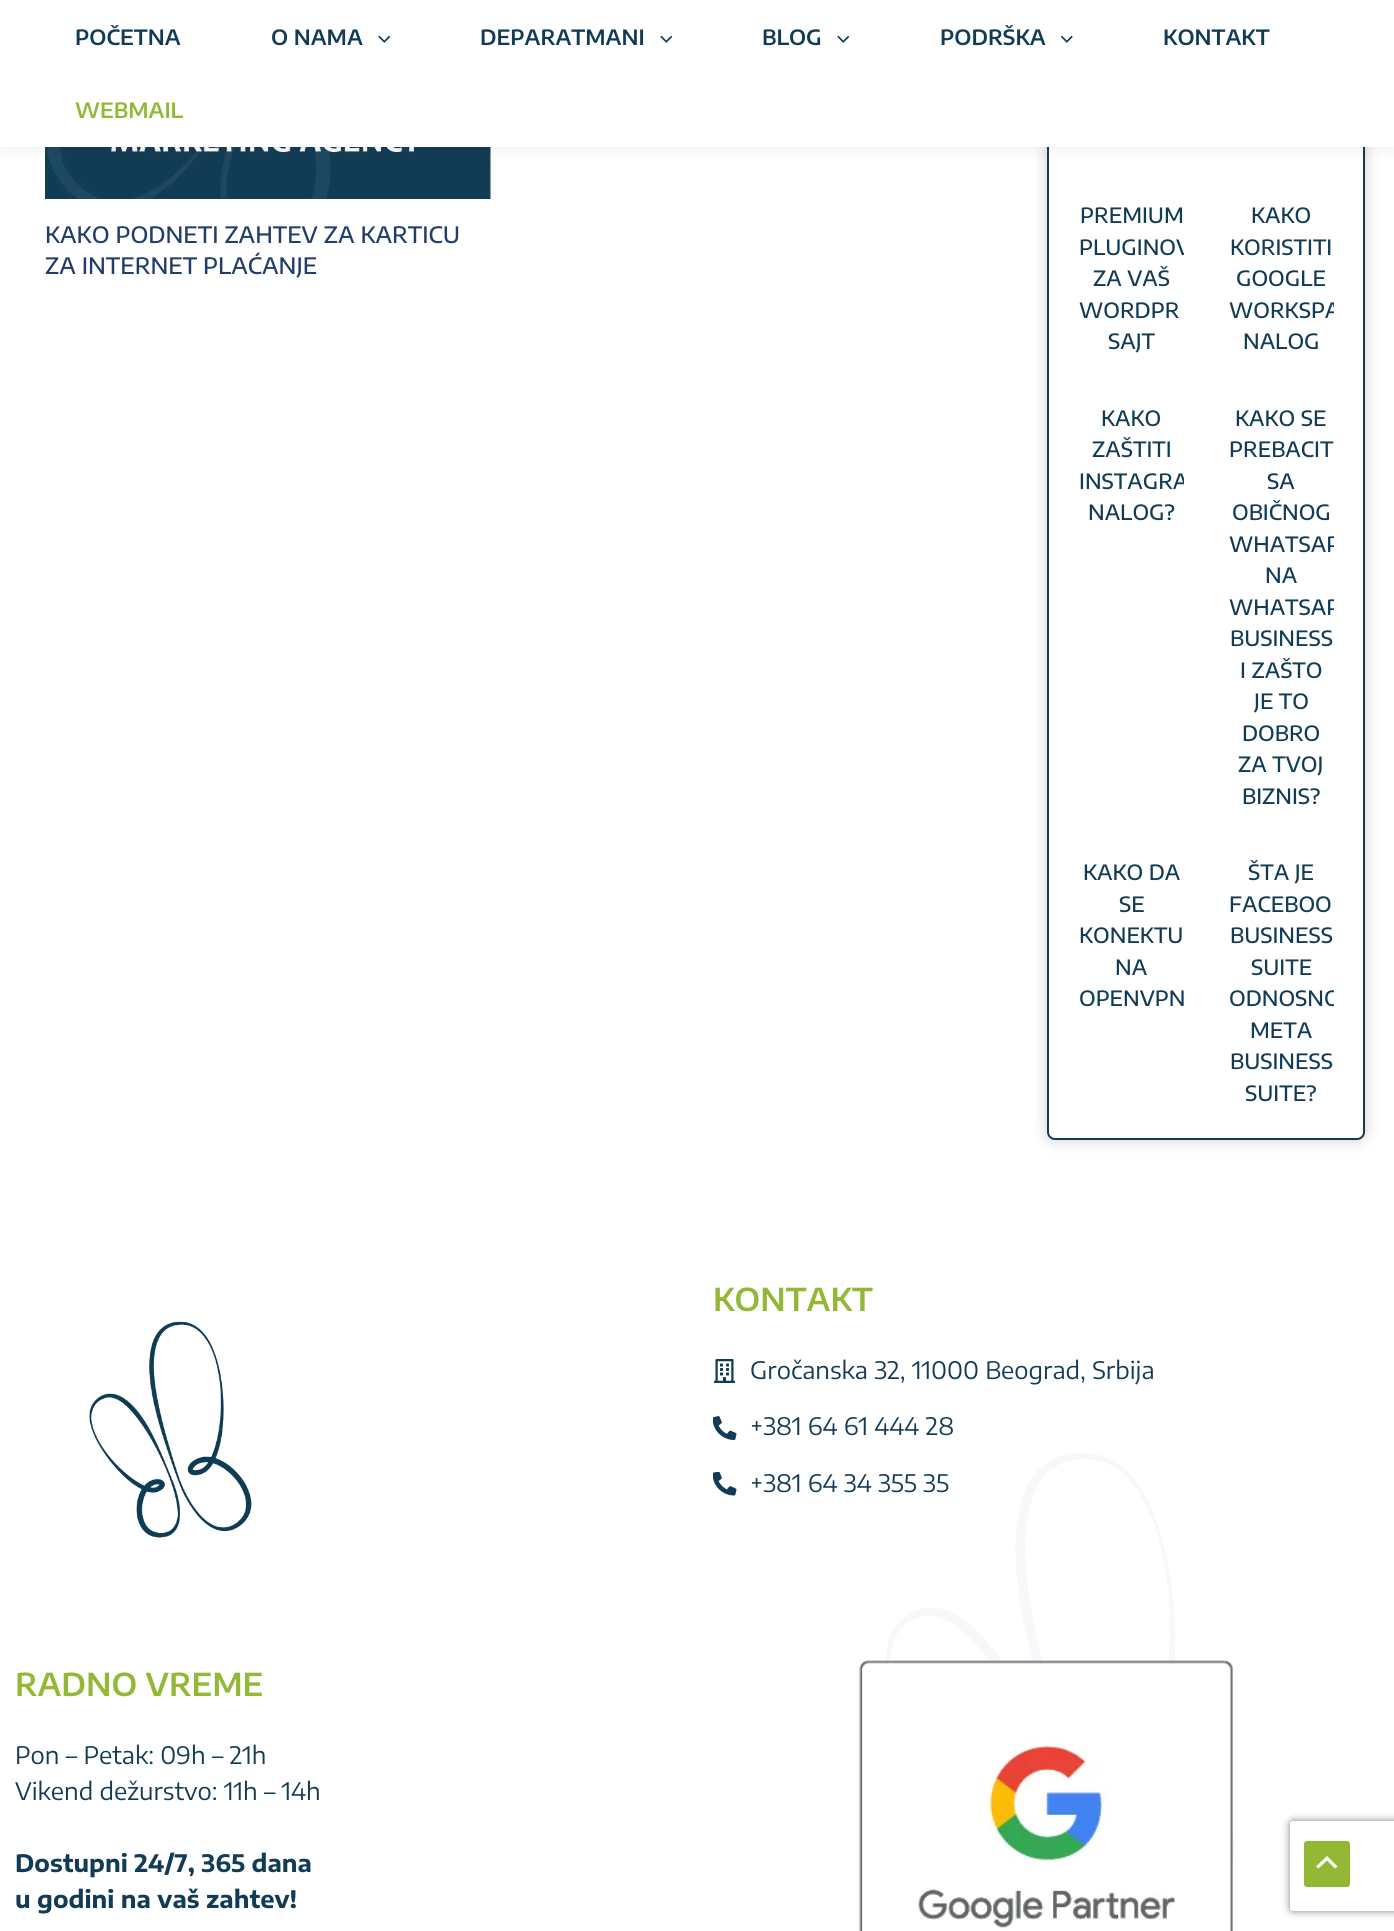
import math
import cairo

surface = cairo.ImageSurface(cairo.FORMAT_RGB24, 1394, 1931)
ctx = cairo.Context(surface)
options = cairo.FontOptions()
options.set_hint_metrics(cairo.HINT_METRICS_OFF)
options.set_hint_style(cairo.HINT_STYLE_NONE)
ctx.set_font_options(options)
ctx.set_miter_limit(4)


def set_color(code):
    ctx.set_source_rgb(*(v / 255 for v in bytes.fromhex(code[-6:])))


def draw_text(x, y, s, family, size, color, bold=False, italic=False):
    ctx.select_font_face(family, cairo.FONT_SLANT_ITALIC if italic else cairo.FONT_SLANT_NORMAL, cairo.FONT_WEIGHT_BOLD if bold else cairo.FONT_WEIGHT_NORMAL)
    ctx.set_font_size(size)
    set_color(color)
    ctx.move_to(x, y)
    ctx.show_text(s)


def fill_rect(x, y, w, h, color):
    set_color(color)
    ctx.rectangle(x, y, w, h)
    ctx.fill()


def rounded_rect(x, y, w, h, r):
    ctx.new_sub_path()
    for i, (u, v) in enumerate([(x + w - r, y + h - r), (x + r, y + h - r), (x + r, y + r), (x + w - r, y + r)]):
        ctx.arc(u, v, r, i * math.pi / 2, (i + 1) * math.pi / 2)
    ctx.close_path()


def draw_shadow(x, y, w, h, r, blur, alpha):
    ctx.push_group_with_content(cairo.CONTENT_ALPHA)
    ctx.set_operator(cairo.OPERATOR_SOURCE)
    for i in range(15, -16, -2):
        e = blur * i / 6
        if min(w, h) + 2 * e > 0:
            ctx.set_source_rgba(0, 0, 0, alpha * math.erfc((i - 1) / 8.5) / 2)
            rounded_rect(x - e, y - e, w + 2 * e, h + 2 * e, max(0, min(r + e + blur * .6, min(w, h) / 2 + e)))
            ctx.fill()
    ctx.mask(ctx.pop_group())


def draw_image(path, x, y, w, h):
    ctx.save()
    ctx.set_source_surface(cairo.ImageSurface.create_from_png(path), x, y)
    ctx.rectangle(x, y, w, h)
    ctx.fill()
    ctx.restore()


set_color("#ffffff")
ctx.paint()
draw_image("assets/img3.png", 45, 147, 446, 52)
set_color("#000000")
draw_shadow(1047, -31, 318, 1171, 8, 7.5, 0.2)
set_color("#ffffff")
rounded_rect(1048, -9, 316, 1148, 7)
ctx.fill_preserve()
set_color("#123c56")
ctx.stroke()
set_color("#243242")
draw_shadow(0, 3, 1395, 147, 0, 7.5, 0.07)
fill_rect(0, 0, 1394, 147, "#ffffff")
draw_text(75, 45, "POČETNA", "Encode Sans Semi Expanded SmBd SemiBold", 21, "#123c56")
draw_text(271, 45, "O NAMA", "Encode Sans Semi Expanded SmBd SemiBold", 21, "#123c56")
draw_image("assets/img1.png", 378, 35, 12, 8)
draw_text(480, 45, "DEPARATMANI", "Encode Sans Semi Expanded SmBd SemiBold", 21, "#123c56")
draw_image("assets/img1.png", 660, 35, 12, 8)
draw_text(762, 45, "BLOG", "Encode Sans Semi Expanded SmBd SemiBold", 21, "#123c56")
draw_image("assets/img1.png", 837, 35, 12, 8)
draw_text(940, 45, "PODRŠKA", "Encode Sans Semi Expanded SmBd SemiBold", 21, "#123c56")
draw_image("assets/img2.png", 1061, 35, 12, 8)
draw_text(1163, 45, "KONTAKT", "Encode Sans Semi Expanded SmBd SemiBold", 21, "#123c56")
draw_text(75, 118, "WEBMAIL", "Encode Sans Semi Expanded SmBd SemiBold", 21, "#92b835")
draw_text(45, 243, "KAKO PODNETI ZAHTEV ZA KARTICU", "Encode Sans Semi Expanded Medium", 22.5, "#213d6a")
draw_text(45, 274, "ZA INTERNET PLAĆANJE", "Encode Sans Semi Expanded Medium", 22.5, "#213d6a")
draw_text(1080, 223, "PREMIUM", "Encode Sans Semi Expanded Medium", 21, "#123c56")
ctx.save()
ctx.rectangle(1079, 200, 105, 157)
ctx.clip()
draw_text(1079, 255, "PLUGINOV", "Encode Sans Semi Expanded Medium", 21, "#123c56")
ctx.restore()
draw_text(1093, 286, "ZA VAŠ", "Encode Sans Semi Expanded Medium", 21, "#123c56")
draw_text(1079, 318, "WORDPR", "Encode Sans Semi Expanded Medium", 21, "#123c56")
draw_text(1108, 349, "SAJT", "Encode Sans Semi Expanded Medium", 21, "#123c56")
draw_text(1251, 223, "KAKO", "Encode Sans Semi Expanded Medium", 21, "#123c56")
draw_text(1230, 255, "KORISTITI", "Encode Sans Semi Expanded Medium", 21, "#123c56")
draw_text(1236, 286, "GOOGLE", "Encode Sans Semi Expanded Medium", 21, "#123c56")
ctx.save()
ctx.rectangle(1229, 200, 105, 157)
ctx.clip()
draw_text(1229, 318, "WORKSPA", "Encode Sans Semi Expanded Medium", 21, "#123c56")
ctx.restore()
draw_text(1243, 349, "NALOG", "Encode Sans Semi Expanded Medium", 21, "#123c56")
draw_text(1101, 426, "KAKO", "Encode Sans Semi Expanded Medium", 21, "#123c56")
draw_text(1092, 457, "ZAŠTITI", "Encode Sans Semi Expanded Medium", 21, "#123c56")
ctx.save()
ctx.rectangle(1079, 402, 105, 410)
ctx.clip()
draw_text(1079, 489, "INSTAGRA", "Encode Sans Semi Expanded Medium", 21, "#123c56")
ctx.restore()
draw_text(1088, 520, "NALOG?", "Encode Sans Semi Expanded Medium", 21, "#123c56")
draw_text(1235, 426, "KAKO SE", "Encode Sans Semi Expanded Medium", 21, "#123c56")
draw_text(1229, 457, "PREBACIT", "Encode Sans Semi Expanded Medium", 21, "#123c56")
draw_text(1267, 489, "SA", "Encode Sans Semi Expanded Medium", 21, "#123c56")
draw_text(1232, 520, "OBIČNOG", "Encode Sans Semi Expanded Medium", 21, "#123c56")
ctx.save()
ctx.rectangle(1229, 402, 105, 410)
ctx.clip()
draw_text(1229, 552, "WHATSAP", "Encode Sans Semi Expanded Medium", 21, "#123c56")
ctx.restore()
draw_text(1265, 583, "NA", "Encode Sans Semi Expanded Medium", 21, "#123c56")
ctx.save()
ctx.rectangle(1229, 402, 105, 410)
ctx.clip()
draw_text(1229, 615, "WHATSAP", "Encode Sans Semi Expanded Medium", 21, "#123c56")
ctx.restore()
draw_text(1230, 646, "BUSINESS", "Encode Sans Semi Expanded Medium", 21, "#123c56")
draw_text(1240, 678, "I ZAŠTO", "Encode Sans Semi Expanded Medium", 21, "#123c56")
draw_text(1254, 709, "JE TO", "Encode Sans Semi Expanded Medium", 21, "#123c56")
draw_text(1242, 741, "DOBRO", "Encode Sans Semi Expanded Medium", 21, "#123c56")
draw_text(1238, 772, "ZA TVOJ", "Encode Sans Semi Expanded Medium", 21, "#123c56")
draw_text(1242, 804, "BIZNIS?", "Encode Sans Semi Expanded Medium", 21, "#123c56")
draw_text(1083, 880, "KAKO DA", "Encode Sans Semi Expanded Medium", 21, "#123c56")
draw_text(1119, 912, "SE", "Encode Sans Semi Expanded Medium", 21, "#123c56")
draw_text(1079, 943, "KONEKTU", "Encode Sans Semi Expanded Medium", 21, "#123c56")
draw_text(1115, 975, "NA", "Encode Sans Semi Expanded Medium", 21, "#123c56")
draw_text(1079, 1006, "OPENVPN", "Encode Sans Semi Expanded Medium", 21, "#123c56")
draw_text(1248, 880, "ŠTA JE", "Encode Sans Semi Expanded Medium", 21, "#123c56")
draw_text(1229, 912, "FACEBOO", "Encode Sans Semi Expanded Medium", 21, "#123c56")
draw_text(1230, 943, "BUSINESS", "Encode Sans Semi Expanded Medium", 21, "#123c56")
draw_text(1251, 975, "SUITE", "Encode Sans Semi Expanded Medium", 21, "#123c56")
ctx.save()
ctx.rectangle(1229, 857, 105, 252)
ctx.clip()
draw_text(1229, 1006, "ODNOSNO", "Encode Sans Semi Expanded Medium", 21, "#123c56")
ctx.restore()
draw_text(1250, 1038, "META", "Encode Sans Semi Expanded Medium", 21, "#123c56")
draw_text(1230, 1069, "BUSINESS", "Encode Sans Semi Expanded Medium", 21, "#123c56")
draw_text(1245, 1101, "SUITE?", "Encode Sans Semi Expanded Medium", 21, "#123c56")
draw_image("assets/img4.png", 89, 1321, 163, 217)
draw_text(713, 1311, "KONTAKT", "Encode Sans Semi Expanded SmBd SemiBold", 31.5, "#92b835")
draw_image("assets/img5.png", 714, 1359, 21, 24)
draw_text(750, 1379, "Gročanska 32, 11000 Beograd, Srbija", "Encode Sans Semi Expanded", 24, "#123c56")
draw_image("assets/img6.png", 713, 1416, 24, 24)
draw_text(750, 1435, "+381 64 61 444 28", "Encode Sans Semi Expanded", 24, "#123c56")
draw_image("assets/img7.png", 713, 1472, 24, 24)
draw_image("assets/img9.png", 887, 1453, 348, 413)
draw_text(750, 1492, "+381 64 34 355 35", "Encode Sans Semi Expanded", 24, "#123c56")
draw_text(15, 1696, "RADNO VREME", "Encode Sans Semi Expanded SmBd SemiBold", 31.5, "#92b835")
draw_text(15, 1764, "Pon – Petak: 09h – 21h", "Encode Sans Semi Expanded", 24, "#123c56")
draw_text(15, 1800, "Vikend dežurstvo: 11h – 14h", "Encode Sans Semi Expanded", 24, "#123c56")
draw_text(15, 1872, "Dostupni 24/7, 365 dana", "Encode Sans Semi Expanded", 24, "#123c56", bold=True)
draw_text(15, 1908, "u godini na vaš zahtev!", "Encode Sans Semi Expanded", 24, "#123c56", bold=True)
draw_image("assets/img8.png", 859, 1660, 374, 271)
ctx.save()
ctx.set_fill_rule(cairo.FILL_RULE_EVEN_ODD)
ctx.new_path()
ctx.move_to(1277, 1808)
ctx.line_to(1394, 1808)
ctx.line_to(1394, 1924)
ctx.line_to(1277, 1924)
ctx.close_path()
ctx.move_to(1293, 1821)
ctx.line_to(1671, 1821)
ctx.curve_to(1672.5, 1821, 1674, 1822.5, 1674, 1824)
ctx.line_to(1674, 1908)
ctx.curve_to(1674, 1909.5, 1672.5, 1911, 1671, 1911)
ctx.line_to(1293, 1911)
ctx.curve_to(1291.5, 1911, 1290, 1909.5, 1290, 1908)
ctx.line_to(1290, 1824)
ctx.curve_to(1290, 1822.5, 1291.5, 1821, 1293, 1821)
ctx.close_path()
ctx.clip()
set_color("#808080")
draw_shadow(1290, 1821, 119, 90, 3, 4, 1)
ctx.restore()
set_color("#92b835")
rounded_rect(1304, 1841, 46, 46, 3)
ctx.fill()
set_color("#ffffff")
ctx.new_path()
ctx.move_to(1337.5, 1866.5)
ctx.line_to(1327, 1856)
ctx.line_to(1316, 1866.5)
ctx.line_to(1318.5, 1868.5)
ctx.line_to(1327, 1860.5)
ctx.line_to(1335, 1868.5)
ctx.close_path()
ctx.fill()
surface.write_to_png("output.png")
